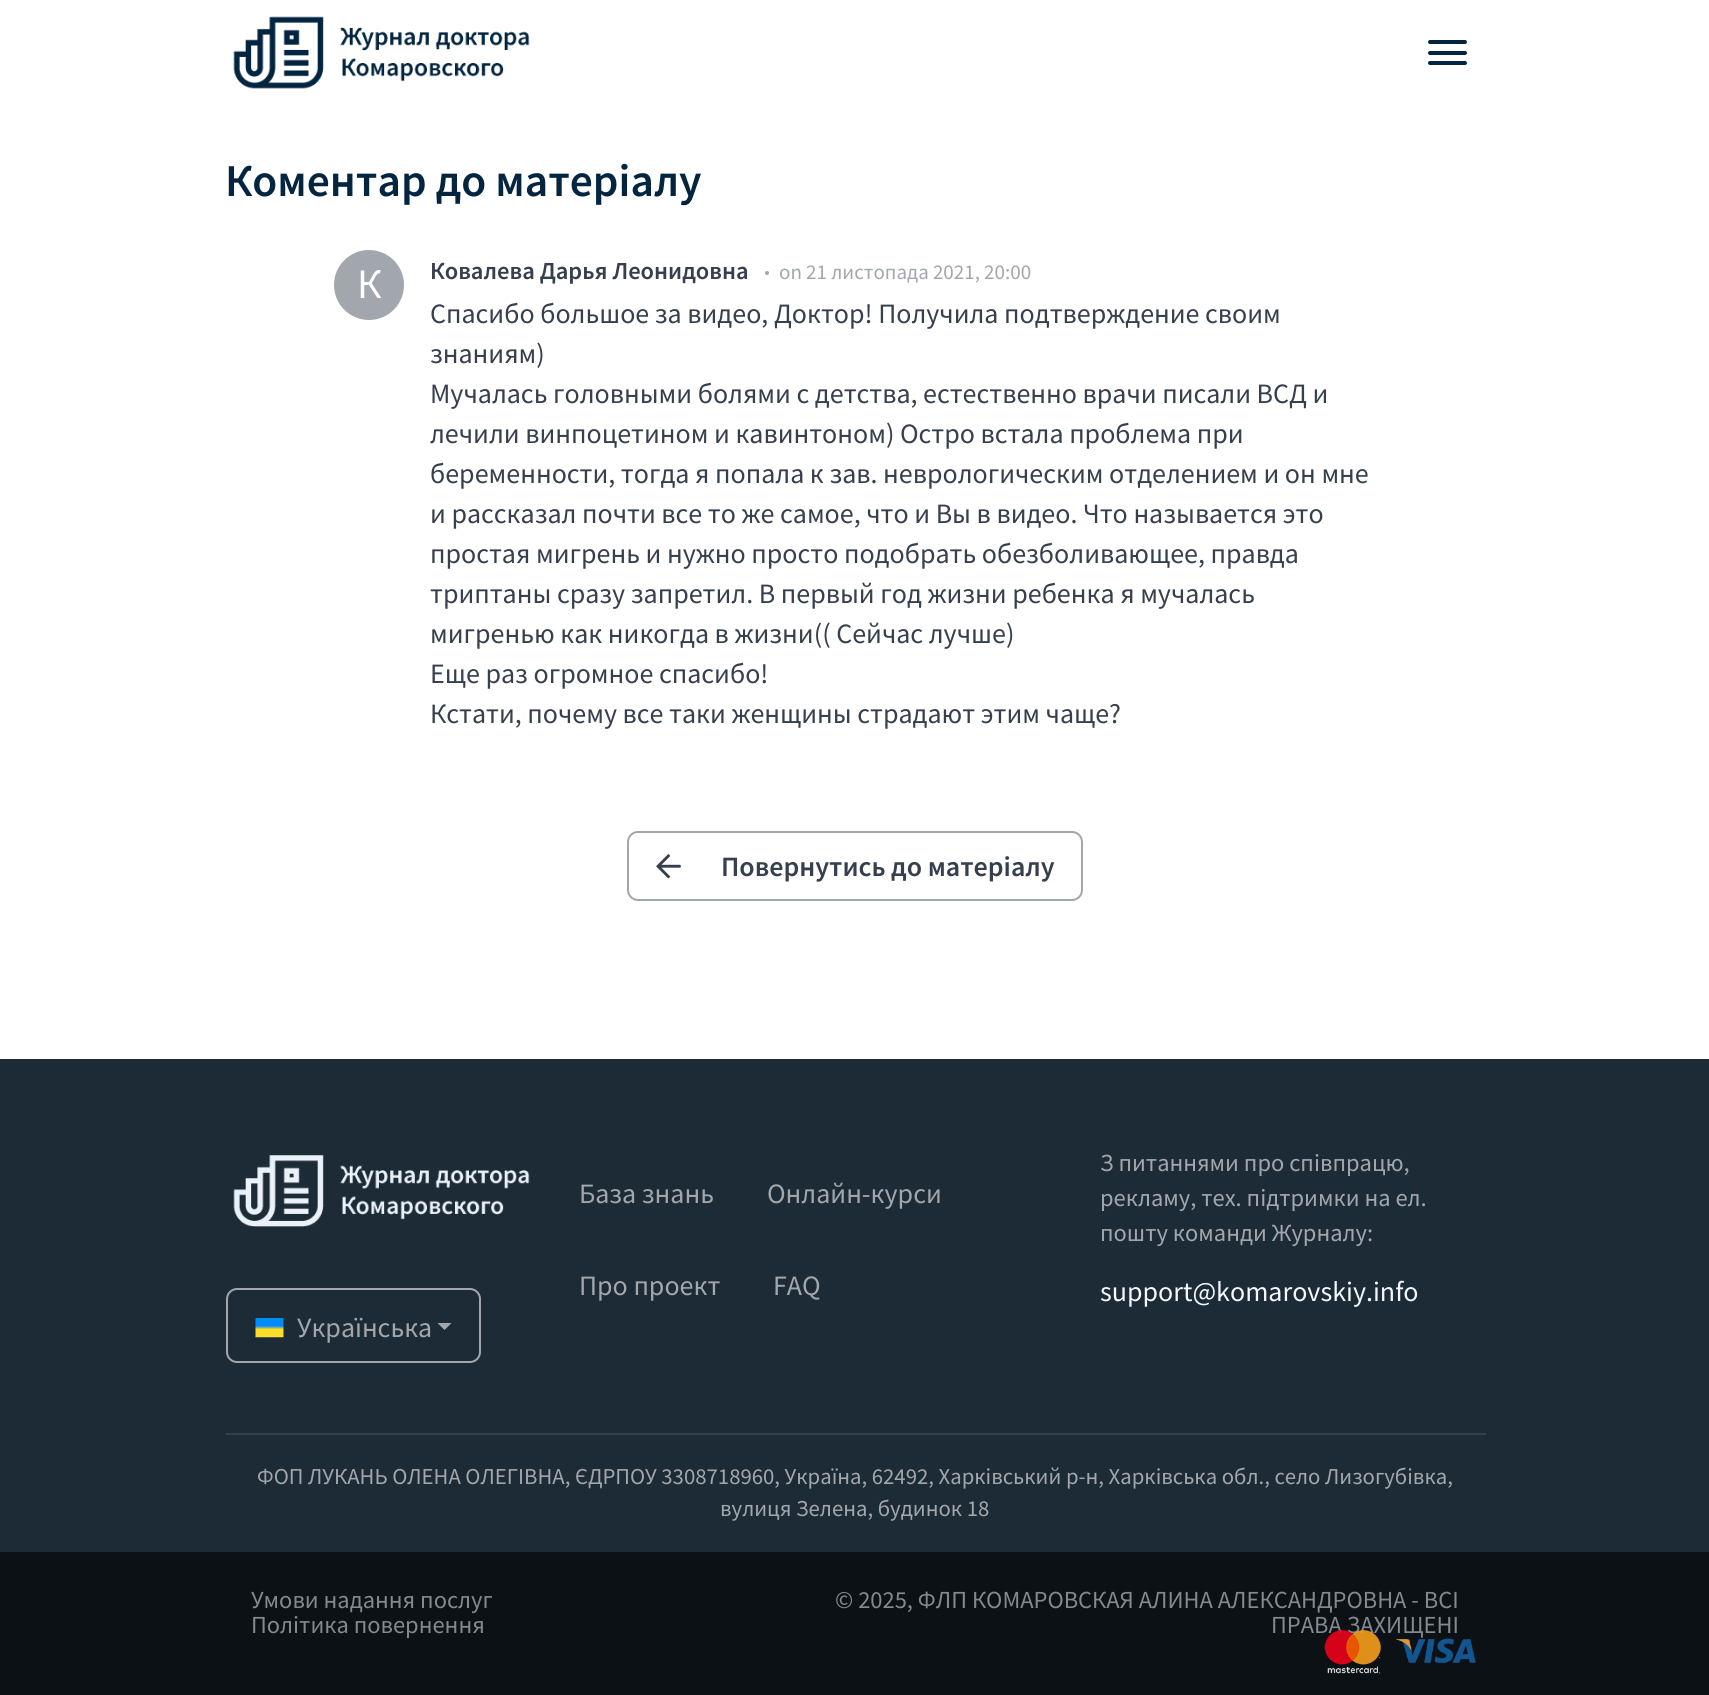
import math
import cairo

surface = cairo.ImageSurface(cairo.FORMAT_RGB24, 1709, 1695)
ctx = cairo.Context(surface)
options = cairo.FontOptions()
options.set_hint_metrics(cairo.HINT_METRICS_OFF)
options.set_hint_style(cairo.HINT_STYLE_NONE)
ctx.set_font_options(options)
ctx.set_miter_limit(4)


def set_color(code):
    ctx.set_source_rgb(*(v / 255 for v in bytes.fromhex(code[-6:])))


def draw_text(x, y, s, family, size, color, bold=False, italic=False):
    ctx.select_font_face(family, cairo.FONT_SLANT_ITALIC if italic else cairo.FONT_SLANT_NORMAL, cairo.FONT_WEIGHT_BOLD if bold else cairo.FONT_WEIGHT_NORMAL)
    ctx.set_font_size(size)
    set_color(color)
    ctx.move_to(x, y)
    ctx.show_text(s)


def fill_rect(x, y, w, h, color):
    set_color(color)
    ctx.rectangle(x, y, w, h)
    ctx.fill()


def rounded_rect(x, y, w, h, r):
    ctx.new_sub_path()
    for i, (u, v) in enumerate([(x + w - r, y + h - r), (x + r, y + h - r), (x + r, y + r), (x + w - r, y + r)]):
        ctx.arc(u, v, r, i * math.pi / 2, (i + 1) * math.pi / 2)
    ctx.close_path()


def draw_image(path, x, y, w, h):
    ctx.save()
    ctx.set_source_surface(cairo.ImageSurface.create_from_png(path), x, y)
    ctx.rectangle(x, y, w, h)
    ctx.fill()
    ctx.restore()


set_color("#ffffff")
ctx.paint()
draw_image("assets/img1.png", 233, 16, 297, 73)
set_color("#032540")
rounded_rect(1428, 40, 39, 4, 2)
ctx.fill()
rounded_rect(1428, 51, 39, 4, 2)
ctx.fill()
rounded_rect(1428, 61, 39, 4, 2)
ctx.fill()
draw_text(225, 196, "Коментар до матеріалу", "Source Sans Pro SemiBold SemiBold", 45.5, "#032540")
set_color("#a2a7ad")
ctx.new_path()
ctx.arc(369, 285, 35, 0, 2 * math.pi)
ctx.fill()
draw_text(357, 298, "К", "Source Sans Pro", 42, "#ffffff")
draw_text(430, 279, "Ковалева Дарья Леонидовна", "Source Sans Pro SemiBold SemiBold", 24.5, "#363f4d")
set_color("#a2a7ad")
ctx.new_path()
ctx.arc(767, 273, 2, 0, 2 * math.pi)
ctx.fill()
draw_text(779, 279, "on 21 листопада 2021, 20:00", "Source Sans Pro", 21, "#a2a7ad")
draw_text(430, 323, "Спасибо большое за видео, Доктор! Получила подтверждение своим", "Source Sans Pro", 28, "#363f4d")
draw_text(430, 363, "знаниям)", "Source Sans Pro", 28, "#363f4d")
draw_text(430, 403, "Мучалась головными болями с детства, естественно врачи писали ВСД и", "Source Sans Pro", 28, "#363f4d")
draw_text(430, 443, "лечили винпоцетином и кавинтоном) Остро встала проблема при", "Source Sans Pro", 28, "#363f4d")
draw_text(430, 483, "беременности, тогда я попала к зав. неврологическим отделением и он мне", "Source Sans Pro", 28, "#363f4d")
draw_text(430, 523, "и рассказал почти все то же самое, что и Вы в видео. Что называется это", "Source Sans Pro", 28, "#363f4d")
draw_text(430, 563, "простая мигрень и нужно просто подобрать обезболивающее, правда", "Source Sans Pro", 28, "#363f4d")
draw_text(430, 603, "триптаны сразу запретил. В первый год жизни ребенка я мучалась", "Source Sans Pro", 28, "#363f4d")
draw_text(430, 643, "мигренью как никогда в жизни(( Сейчас лучше)", "Source Sans Pro", 28, "#363f4d")
draw_text(430, 683, "Еще раз огромное спасибо!", "Source Sans Pro", 28, "#363f4d")
draw_text(430, 723, "Кстати, почему все таки женщины страдают этим чаще?", "Source Sans Pro", 28, "#363f4d")
rounded_rect(628, 832, 454, 68, 10)
set_color("#a2a7ad")
ctx.stroke()
draw_image("assets/img2.png", 656, 854, 25, 25)
draw_text(721, 876, "Повернутись до матеріалу", "Source Sans Pro SemiBold SemiBold", 28, "#363f4d")
fill_rect(0, 1059, 1709, 493, "#1d2b36")
draw_text(579, 1203, "База знань", "Source Sans Pro", 28, "#a2a7ad")
draw_text(767, 1203, "Онлайн-курси", "Source Sans Pro", 28, "#a2a7ad")
draw_text(579, 1295, "Про проект", "Source Sans Pro", 28, "#a2a7ad")
draw_text(773, 1295, "FAQ", "Source Sans Pro", 28, "#a2a7ad")
draw_text(1100, 1171, "З питаннями про співпрацю,", "Source Sans Pro", 24.5, "#a2a7ad")
draw_text(1100, 1206, "рекламу, тех. підтримки на ел.", "Source Sans Pro", 24.5, "#a2a7ad")
draw_text(1100, 1241, "пошту команди Журналу:", "Source Sans Pro", 24.5, "#a2a7ad")
draw_text(1100, 1301, "support@komarovskiy.info", "Source Sans Pro", 28, "#f3f7ff")
draw_image("assets/img3.png", 233, 1155, 297, 72)
rounded_rect(227, 1289, 253, 73, 10)
set_color("#a2a7ad")
ctx.stroke()
draw_image("assets/img4.png", 255, 1318, 29, 20)
draw_text(297, 1337, "Українська", "Source Sans Pro", 28, "#a2a7ad")
ctx.new_path()
ctx.move_to(437.5, 1323)
ctx.line_to(451.5, 1323)
ctx.line_to(444.5, 1330)
ctx.close_path()
ctx.fill()
fill_rect(226, 1433, 1260, 2, "#34404a")
draw_text(257, 1484, "ФОП ЛУКАНЬ ОЛЕНА ОЛЕГІВНА, ЄДРПОУ 3308718960, Україна, 62492, Харківський р-н, Харківська обл., село Лизогубівка,", "Source Sans Pro", 22.75, "#a2a7ad")
draw_text(720, 1516, "вулиця Зелена, будинок 18", "Source Sans Pro", 22.75, "#a2a7ad")
fill_rect(0, 1552, 1709, 143, "#0b1115")
draw_text(251, 1608, "Умови надання послуг", "Source Sans Pro", 24.5, "#84898f")
draw_text(251, 1633, "Політика повернення", "Source Sans Pro", 24.5, "#84898f")
draw_text(835, 1608, "© 2025, ФЛП КОМАРОВСКАЯ АЛИНА АЛЕКСАНДРОВНА - ВСІ", "Source Sans Pro", 24.5, "#84898f")
draw_text(1271, 1633, "ПРАВА ЗАХИЩЕНІ", "Source Sans Pro", 24.5, "#84898f")
draw_image("assets/img5.png", 1324, 1629, 57, 45)
draw_image("assets/img6.png", 1396, 1638, 80, 25)
surface.write_to_png("output.png")
